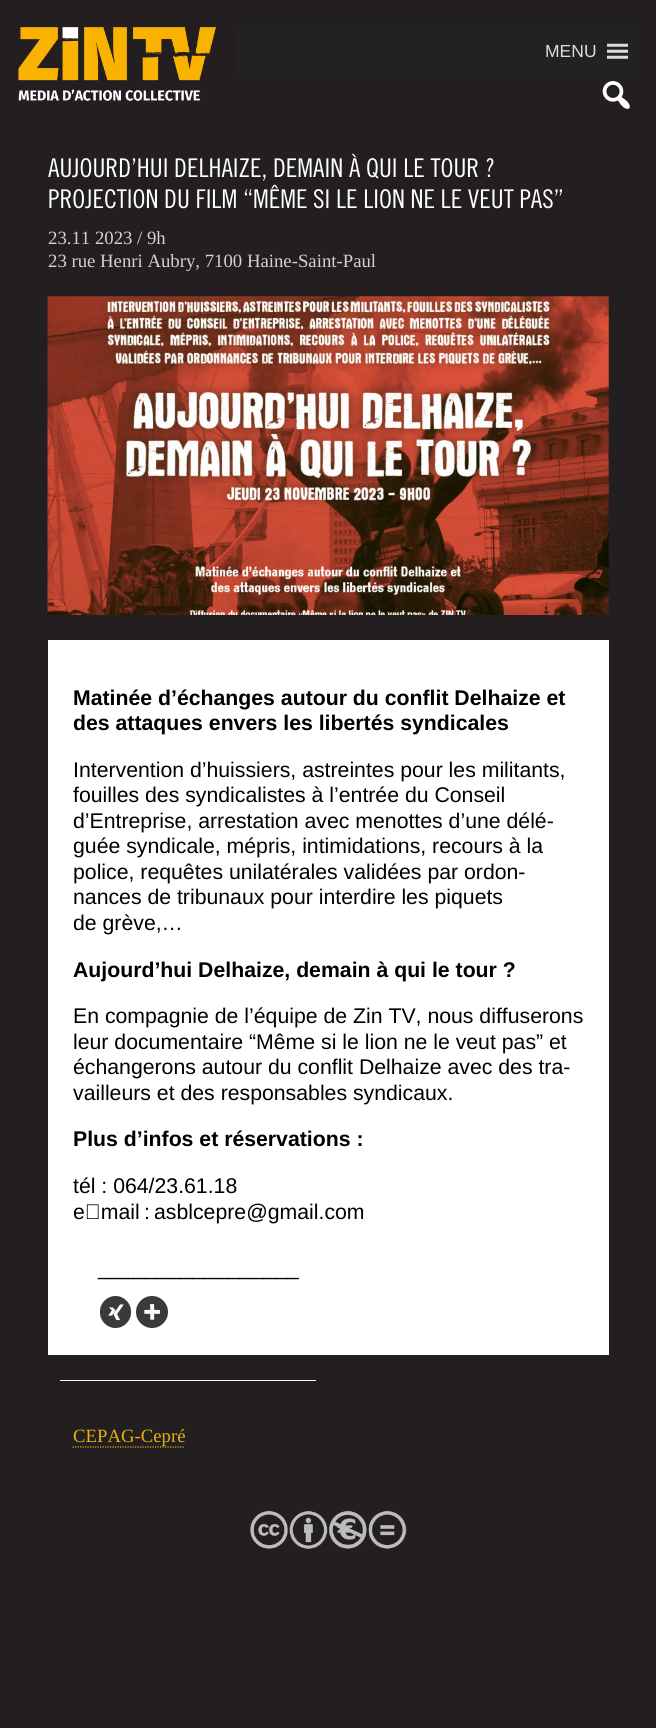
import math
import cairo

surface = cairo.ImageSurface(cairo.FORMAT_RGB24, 656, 1728)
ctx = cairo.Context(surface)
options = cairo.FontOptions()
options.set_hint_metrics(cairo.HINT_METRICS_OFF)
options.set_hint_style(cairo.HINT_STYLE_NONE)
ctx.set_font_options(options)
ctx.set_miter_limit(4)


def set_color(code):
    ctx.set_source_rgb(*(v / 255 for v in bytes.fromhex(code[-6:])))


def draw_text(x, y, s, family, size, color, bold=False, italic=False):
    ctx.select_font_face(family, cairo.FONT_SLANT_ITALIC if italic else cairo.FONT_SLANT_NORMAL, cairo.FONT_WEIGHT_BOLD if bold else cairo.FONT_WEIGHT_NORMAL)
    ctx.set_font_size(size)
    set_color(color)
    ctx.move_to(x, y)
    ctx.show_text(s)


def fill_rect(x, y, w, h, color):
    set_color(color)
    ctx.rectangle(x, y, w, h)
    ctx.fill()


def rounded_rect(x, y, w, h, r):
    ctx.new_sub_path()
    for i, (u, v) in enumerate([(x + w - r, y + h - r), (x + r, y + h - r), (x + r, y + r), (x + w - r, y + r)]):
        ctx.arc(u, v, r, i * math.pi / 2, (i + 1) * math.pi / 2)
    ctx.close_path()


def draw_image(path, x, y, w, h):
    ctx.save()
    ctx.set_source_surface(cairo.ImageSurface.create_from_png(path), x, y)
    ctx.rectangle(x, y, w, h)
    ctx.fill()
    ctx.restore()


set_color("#231f20")
ctx.paint()
draw_image("assets/img1.png", 18, 27, 198, 74)
set_color("#222222")
rounded_rect(236, 26, 404, 50, 2.5)
ctx.fill()
draw_text(545, 57, "MENU", "Liberation Sans", 17.5, "#dddddd")
draw_image("assets/img2.png", 607, 43, 21, 16)
draw_image("assets/img3.png", 602, 81, 28, 28)
draw_text(48, 177, "AUJOURD’HUI DELHAIZE, DEMAIN À QUI LE TOUR ?", "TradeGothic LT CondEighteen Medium", 25.8, "#ffffff")
draw_text(48, 208, "PROJECTION DU FILM “MÊME SI LE LION NE LE VEUT PAS”", "TradeGothic LT CondEighteen Medium", 25.8, "#ffffff")
draw_text(48, 244, "23.11 2023 / 9h", "Liberation Serif", 18.75, "#d3d2d2")
draw_text(48, 267, "23 rue Henri Aubry, 7100 Haine-Saint-Paul", "Liberation Serif", 18.75, "#d3d2d2")
draw_image("assets/img4.png", 47, 296, 562, 319)
fill_rect(48, 640, 561, 715, "#ffffff")
draw_text(73, 705, "Matinée d’échanges autour du conflit Delhaize et", "Liberation Sans", 21.25, "#000000", bold=True)
draw_text(73, 730, "des attaques envers les libertés syndicales", "Liberation Sans", 21.25, "#000000", bold=True)
draw_text(73, 777, "Intervention d’huissiers, astreintes pour les militants,", "Liberation Sans", 21.25, "#000000")
draw_text(73, 802, "fouilles des syndicalistes à l’entrée du Conseil", "Liberation Sans", 21.25, "#000000")
draw_text(73, 828, "d’Entreprise, arrestation avec menottes d’une délé-", "Liberation Sans", 21.25, "#000000")
draw_text(73, 853, "guée syndicale, mépris, intimidations, recours à la", "Liberation Sans", 21.25, "#000000")
draw_text(73, 879, "police, requêtes unilatérales validées par ordon-", "Liberation Sans", 21.25, "#000000")
draw_text(73, 904, "nances de tribunaux pour interdire les piquets", "Liberation Sans", 21.25, "#000000")
draw_text(73, 930, "de grève,…", "Liberation Sans", 21.25, "#000000")
draw_text(73, 977, "Aujourd’hui Delhaize, demain à qui le tour ?", "Liberation Sans", 21.25, "#000000", bold=True)
draw_text(73, 1023, "En compagnie de l’équipe de Zin TV, nous diffuserons", "Liberation Sans", 21.25, "#000000")
draw_text(73, 1049, "leur documentaire “Même si le lion ne le veut pas” et", "Liberation Sans", 21.25, "#000000")
draw_text(73, 1074, "échangerons autour du conflit Delhaize avec des tra-", "Liberation Sans", 21.25, "#000000")
draw_text(73, 1100, "vailleurs et des responsables syndicaux.", "Liberation Sans", 21.25, "#000000")
draw_text(73, 1146, "Plus d’infos et réservations :", "Liberation Sans", 21.25, "#000000", bold=True)
draw_text(73, 1193, "tél : 064/23.61.18", "Liberation Sans", 21.25, "#000000")
draw_text(73, 1219, "e‑mail", "Liberation Sans", 21.25, "#000000")
draw_text(144, 1219, ":", "Liberation Sans", 21.25, "#000000")
draw_text(154, 1219, "asblcepre@gmail.com", "Liberation Sans", 21.25, "#000000")
draw_text(98, 1275, "_________________", "Liberation Sans", 21.25, "#000000")
set_color("#3a3a3a")
rounded_rect(100, 1296, 31, 32, 15.5)
ctx.fill()
draw_image("assets/img5.png", 108, 1304, 16, 17)
ctx.arc(152, 1312, 16, 0, 2 * math.pi)
ctx.fill()
draw_image("assets/img6.png", 144, 1304, 16, 16)
fill_rect(60, 1380, 256, 1, "#ffffff")
draw_text(73, 1442, "CEPAG-Cepré", "Liberation Serif", 18.75, "#e7b012")
ctx.new_path()
ctx.move_to(72.5, 1447)
ctx.line_to(185, 1447)
ctx.set_line_width(1.2)
ctx.set_dash([1.25, 1.25])
ctx.stroke()
draw_image("assets/img7.png", 250, 1510, 157, 39)
surface.write_to_png("output.png")
